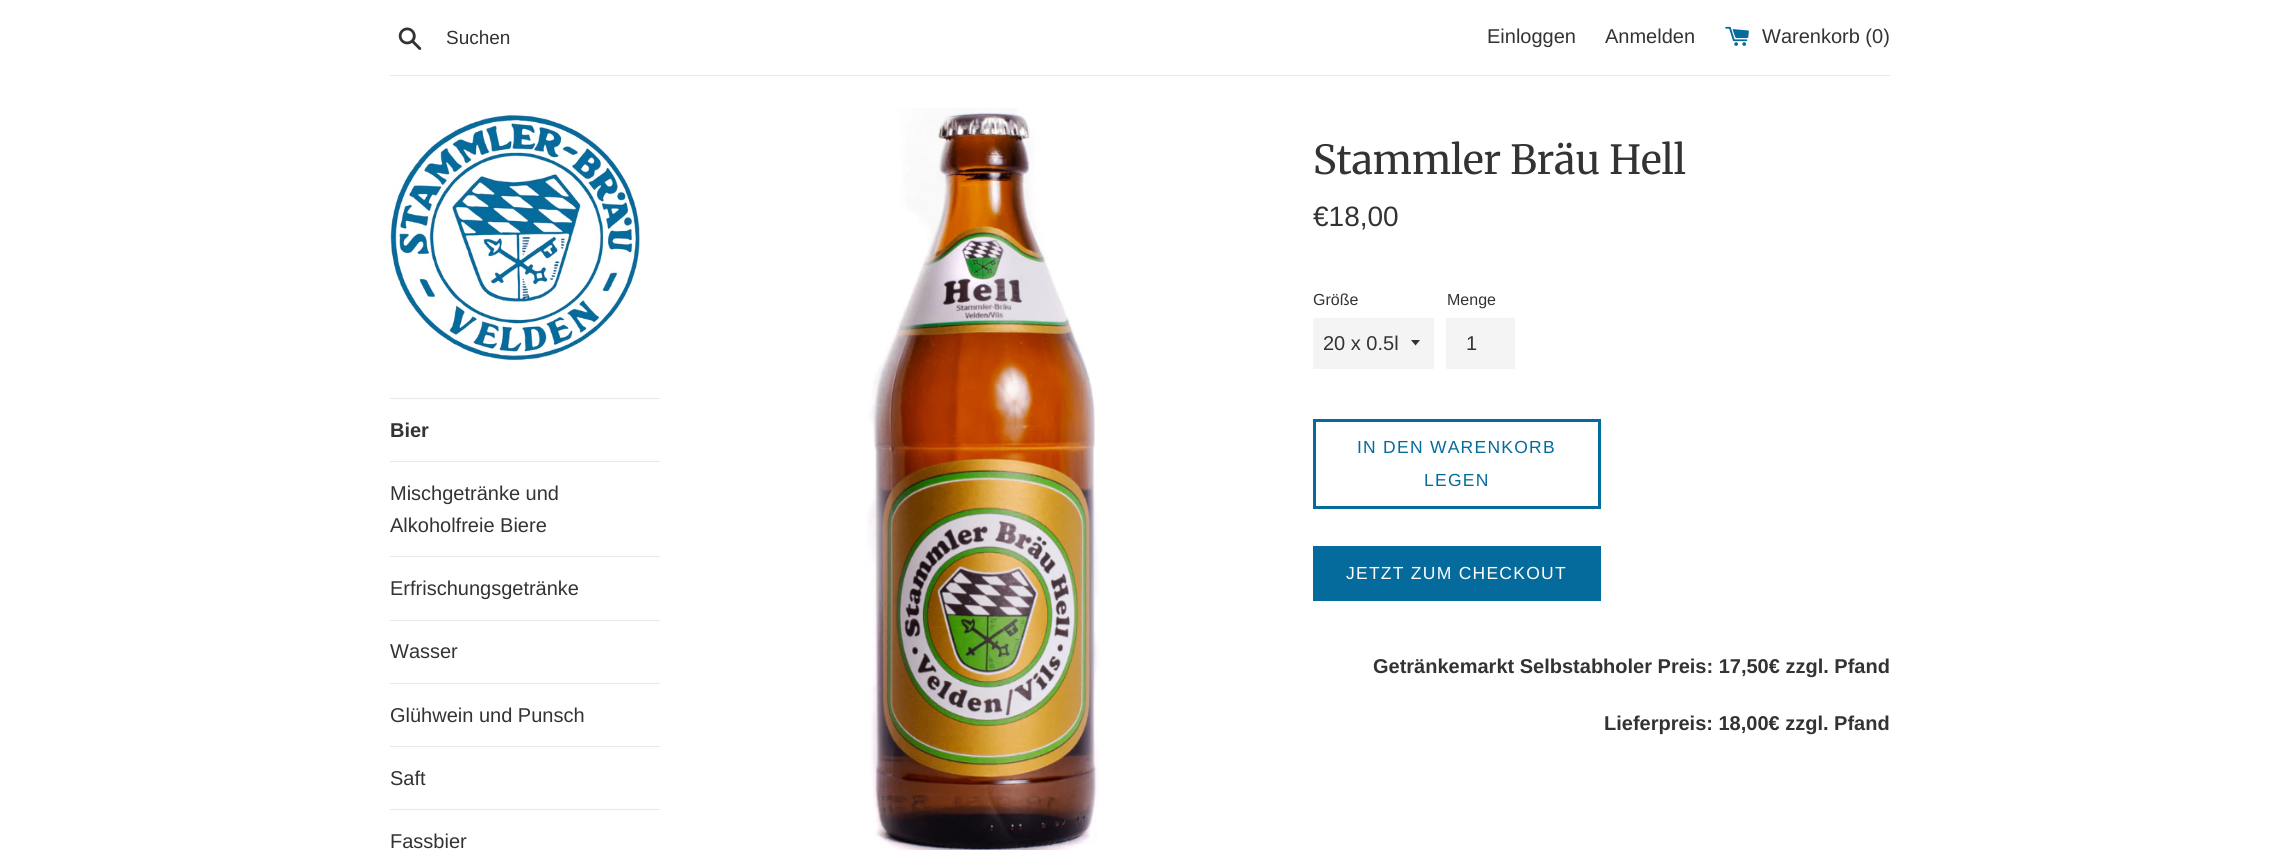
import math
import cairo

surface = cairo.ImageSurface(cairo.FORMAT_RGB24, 2279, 850)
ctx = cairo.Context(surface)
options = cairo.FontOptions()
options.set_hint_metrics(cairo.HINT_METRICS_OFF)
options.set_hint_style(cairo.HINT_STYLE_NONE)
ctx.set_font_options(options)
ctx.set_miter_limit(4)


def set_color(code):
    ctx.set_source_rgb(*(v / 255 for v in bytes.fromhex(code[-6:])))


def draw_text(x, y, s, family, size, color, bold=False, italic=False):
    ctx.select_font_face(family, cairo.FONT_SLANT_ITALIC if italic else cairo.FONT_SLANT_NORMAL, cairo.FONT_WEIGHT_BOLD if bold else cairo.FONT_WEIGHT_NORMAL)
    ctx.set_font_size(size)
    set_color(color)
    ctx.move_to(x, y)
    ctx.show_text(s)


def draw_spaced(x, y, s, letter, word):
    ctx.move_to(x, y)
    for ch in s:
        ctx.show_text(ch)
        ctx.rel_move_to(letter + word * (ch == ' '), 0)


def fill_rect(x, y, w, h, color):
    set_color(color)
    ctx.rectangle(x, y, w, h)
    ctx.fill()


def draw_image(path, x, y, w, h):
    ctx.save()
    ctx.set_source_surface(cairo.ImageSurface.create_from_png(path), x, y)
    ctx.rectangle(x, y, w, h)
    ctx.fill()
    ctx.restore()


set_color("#ffffff")
ctx.paint()
draw_image("assets/img1.png", 398, 27, 24, 23)
draw_text(446, 44, "Suchen", "Liberation Sans", 19, "#333333")
draw_text(1487, 43, "Einloggen", "Liberation Sans", 20, "#333333")
draw_text(1605, 43, "Anmelden", "Liberation Sans", 20, "#333333")
draw_image("assets/img2.png", 1725, 26, 24, 20)
draw_text(1762, 43, "Warenkorb (0)", "Liberation Sans", 20, "#333333")
fill_rect(390, 75, 1500, 1, "#e8e8e8")
draw_image("assets/img3.png", 390, 114, 250, 247)
fill_rect(390, 398, 270, 1, "#e8e8e8")
fill_rect(390, 461, 270, 1, "#e8e8e8")
draw_text(390, 437, "Bier", "Liberation Sans", 20, "#333333", bold=True)
fill_rect(390, 556, 270, 1, "#e8e8e8")
draw_text(390, 500, "Mischgetränke und", "Liberation Sans", 20, "#333333")
draw_text(390, 532, "Alkoholfreie Biere", "Liberation Sans", 20, "#333333")
fill_rect(390, 620, 270, 1, "#e8e8e8")
draw_text(390, 595, "Erfrischungsgetränke", "Liberation Sans", 20, "#333333")
fill_rect(390, 683, 270, 1, "#e8e8e8")
draw_text(390, 658, "Wasser", "Liberation Sans", 20, "#333333")
fill_rect(390, 746, 270, 1, "#e8e8e8")
draw_text(390, 722, "Glühwein und Punsch", "Liberation Sans", 20, "#333333")
fill_rect(390, 809, 270, 1, "#e8e8e8")
draw_text(390, 785, "Saft", "Liberation Sans", 20, "#333333")
draw_text(390, 848, "Fassbier", "Liberation Sans", 20, "#333333")
draw_image("assets/img4.png", 866, 108, 233, 742)
draw_text(1313, 174, "Stammler Bräu Hell", "Merriweather", 40, "#333333")
draw_text(1313, 226, "€18,00", "Liberation Sans", 28, "#333333")
draw_text(1313, 305, "Größe", "Liberation Sans", 16, "#333333")
fill_rect(1313, 318, 121, 51, "#f4f4f4")
set_color("#333333")
ctx.new_path()
ctx.move_to(1411, 340)
ctx.line_to(1415.5, 345.5)
ctx.line_to(1420, 340)
ctx.close_path()
ctx.fill()
draw_text(1323, 350, "20 x 0.5l", "Liberation Sans", 20, "#333333")
draw_text(1447, 305, "Menge", "Liberation Sans", 16, "#333333")
fill_rect(1446, 318, 69, 51, "#f4f4f4")
draw_text(1466, 350, "1", "Liberation Sans", 20, "#333333")
ctx.rectangle(1314.5, 420.5, 285, 87)
set_color("#056b9c")
ctx.set_line_width(3)
ctx.stroke()
ctx.set_font_size(17.5)
draw_spaced(1357, 453, "IN DEN WARENKORB", 1.25, 0)
draw_spaced(1424, 486, "LEGEN", 1.25, 0)
fill_rect(1313, 546, 288, 55, "#056b9c")
set_color("#ffffff")
draw_spaced(1346, 579, "JETZT ZUM CHECKOUT", 1.25, 0)
draw_text(1373, 673, "Getränkemarkt Selbstabholer Preis: 17,50€ zzgl. Pfand", "Liberation Sans", 20, "#333333", bold=True)
draw_text(1604, 730, "Lieferpreis: 18,00€ zzgl. Pfand", "Liberation Sans", 20, "#333333", bold=True)
surface.write_to_png("output.png")
